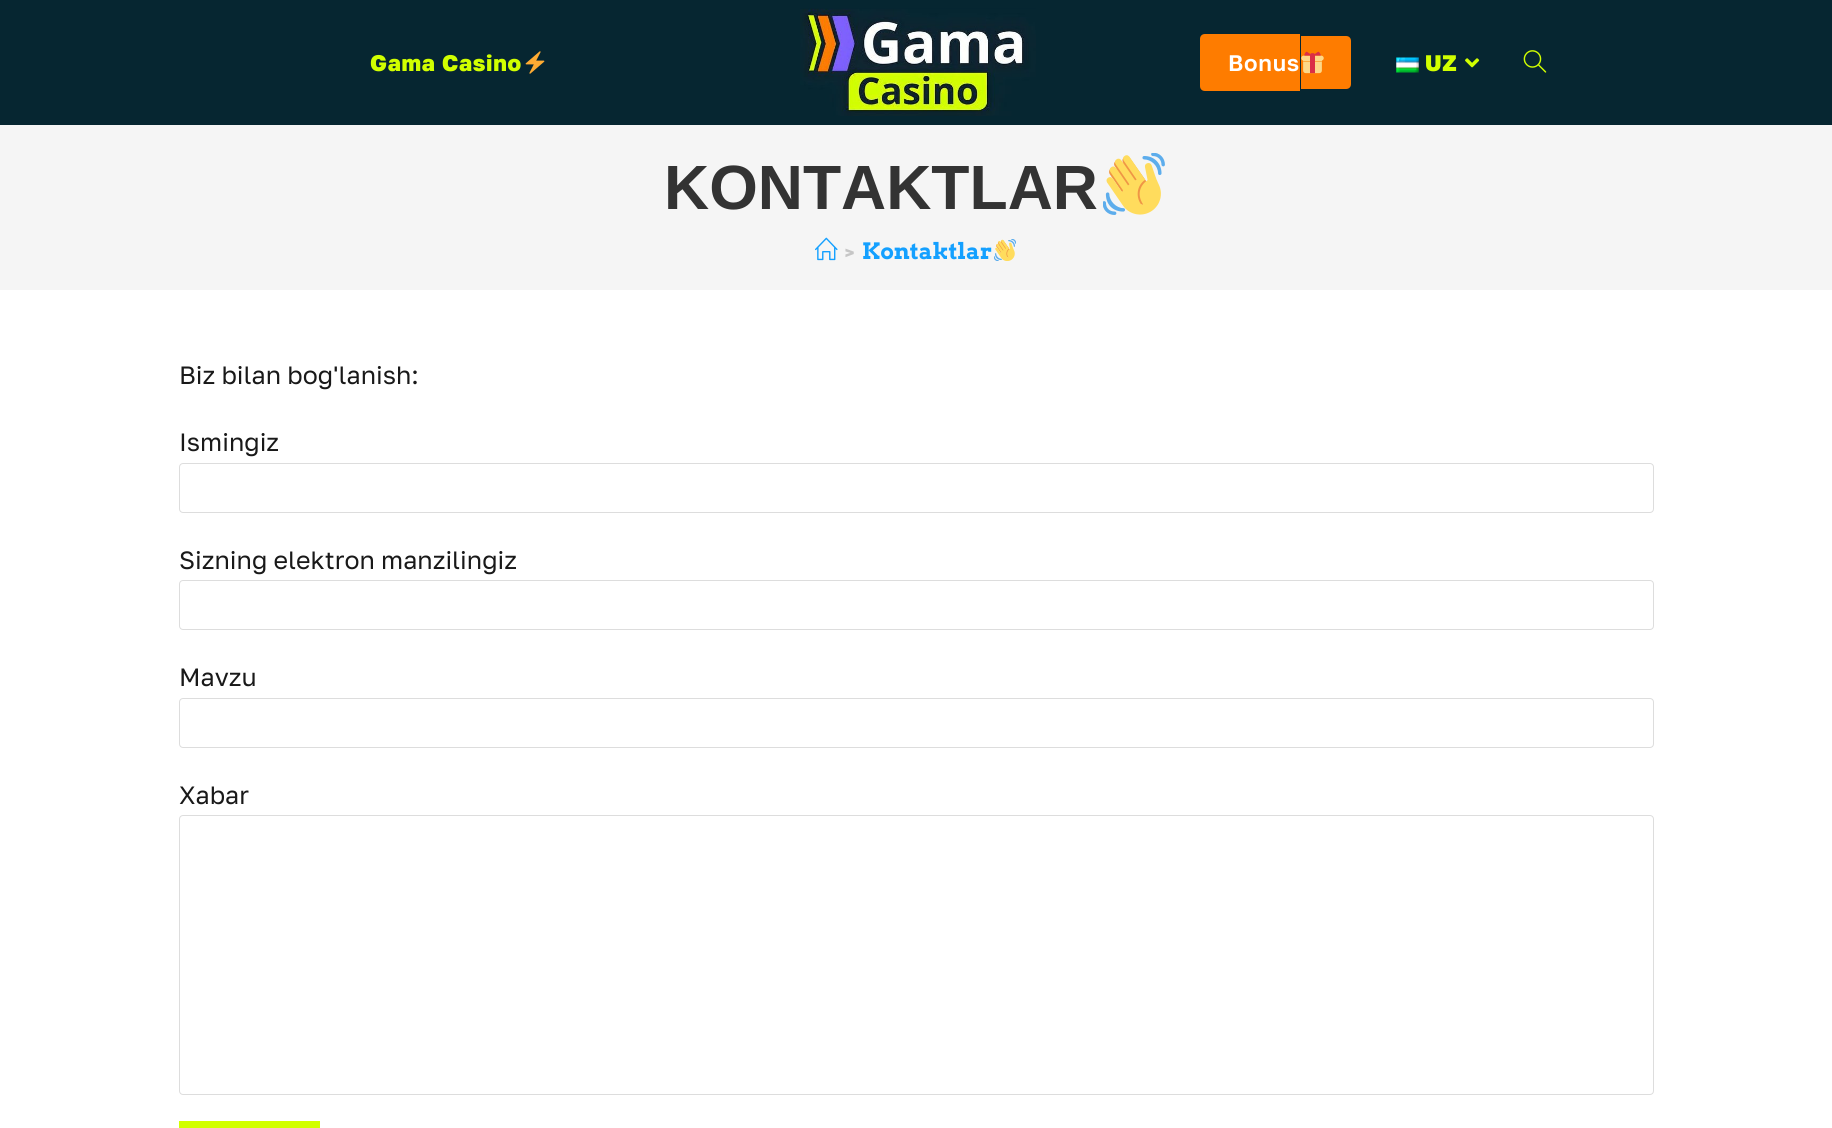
import math
import cairo

surface = cairo.ImageSurface(cairo.FORMAT_RGB24, 1832, 1128)
ctx = cairo.Context(surface)
options = cairo.FontOptions()
options.set_hint_metrics(cairo.HINT_METRICS_OFF)
options.set_hint_style(cairo.HINT_STYLE_NONE)
ctx.set_font_options(options)
ctx.set_miter_limit(4)


def set_color(code):
    ctx.set_source_rgb(*(v / 255 for v in bytes.fromhex(code[-6:])))


def draw_text(x, y, s, family, size, color, bold=False, italic=False):
    ctx.select_font_face(family, cairo.FONT_SLANT_ITALIC if italic else cairo.FONT_SLANT_NORMAL, cairo.FONT_WEIGHT_BOLD if bold else cairo.FONT_WEIGHT_NORMAL)
    ctx.set_font_size(size)
    set_color(color)
    ctx.move_to(x, y)
    ctx.show_text(s)


def draw_spaced(x, y, s, letter, word):
    ctx.move_to(x, y)
    for ch in s:
        ctx.show_text(ch)
        ctx.rel_move_to(letter + word * (ch == ' '), 0)


def fill_rect(x, y, w, h, color):
    set_color(color)
    ctx.rectangle(x, y, w, h)
    ctx.fill()


def rounded_rect(x, y, w, h, r):
    ctx.new_sub_path()
    for i, (u, v) in enumerate([(x + w - r, y + h - r), (x + r, y + h - r), (x + r, y + r), (x + w - r, y + r)]):
        ctx.arc(u, v, r, i * math.pi / 2, (i + 1) * math.pi / 2)
    ctx.close_path()


def draw_image(path, x, y, w, h):
    ctx.save()
    ctx.set_source_surface(cairo.ImageSurface.create_from_png(path), x, y)
    ctx.rectangle(x, y, w, h)
    ctx.fill()
    ctx.restore()


set_color("#ffffff")
ctx.paint()
fill_rect(0, 0, 1832, 125, "#062631")
ctx.select_font_face("Golos Text ExtraBold")
ctx.set_font_size(22.5)
set_color("#d1ff00")
draw_spaced(370, 71, "Gama Casino", 0.75, 0)
draw_image("assets/img1.png", 525, 51, 20, 23)
draw_image("assets/img2.png", 800, 8, 236, 108)
set_color("#fe7c00")
ctx.new_path()
ctx.move_to(1205, 34)
ctx.line_to(1300, 34)
ctx.line_to(1300, 91)
ctx.line_to(1205, 91)
ctx.curve_to(1202, 91, 1200, 89, 1200, 86)
ctx.line_to(1200, 39)
ctx.curve_to(1200, 36, 1202, 34, 1205, 34)
ctx.close_path()
ctx.fill()
ctx.select_font_face("Golos Text SemiBold")
set_color("#ffffff")
draw_spaced(1228, 71, "Bonus", 0.75, 0)
set_color("#fe7c00")
ctx.new_path()
ctx.move_to(1301, 36)
ctx.line_to(1346, 36)
ctx.curve_to(1349, 36, 1351, 38, 1351, 41)
ctx.line_to(1351, 84)
ctx.curve_to(1351, 87, 1349, 89, 1346, 89)
ctx.line_to(1301, 89)
ctx.close_path()
ctx.fill()
draw_image("assets/img3.png", 1301, 51, 23, 23)
draw_image("assets/img4.png", 1396, 57, 23, 16)
ctx.select_font_face("Golos Text ExtraBold")
set_color("#d1ff00")
draw_spaced(1425, 71, "UZ", 0.75, 0)
draw_image("assets/img5.png", 1465, 58, 15, 10)
draw_image("assets/img6.png", 1523, 50, 24, 23)
fill_rect(0, 125, 1832, 165, "#f5f5f5")
draw_text(664, 209, "KONTAKTLAR", "Liberation Sans", 62.5, "#333333", bold=True)
draw_image("assets/img7.png", 1103, 153, 62, 62)
draw_image("assets/img8.png", 815, 237, 23, 24)
draw_text(845, 259, ">", "Arvo", 22.5, "#c6c6c6", bold=True)
draw_text(862, 259, "Kontaktlar", "Arvo", 22.5, "#14a0ff", bold=True)
draw_image("assets/img9.png", 994, 239, 22, 22)
draw_text(179, 384, "Biz bilan bog'lanish:", "Golos Text", 25, "#191919")
draw_text(179, 451, "Ismingiz", "Golos Text", 25, "#191919")
rounded_rect(179.5, 463.5, 1474, 49, 3.5)
set_color("#dddddd")
ctx.set_line_width(1)
ctx.stroke()
draw_text(179, 569, "Sizning elektron manzilingiz", "Golos Text", 25, "#191919")
rounded_rect(179.5, 580.5, 1474, 49, 3.5)
set_color("#dddddd")
ctx.stroke()
draw_text(179, 686, "Mavzu", "Golos Text", 25, "#191919")
rounded_rect(179.5, 698.5, 1474, 49, 3.5)
set_color("#dddddd")
ctx.stroke()
draw_text(179, 804, "Xabar", "Golos Text", 25, "#191919")
rounded_rect(179.5, 815.5, 1474, 279, 3.5)
set_color("#dddddd")
ctx.stroke()
fill_rect(179, 1121, 141, 7, "#d1ff00")
surface.write_to_png("output.png")
